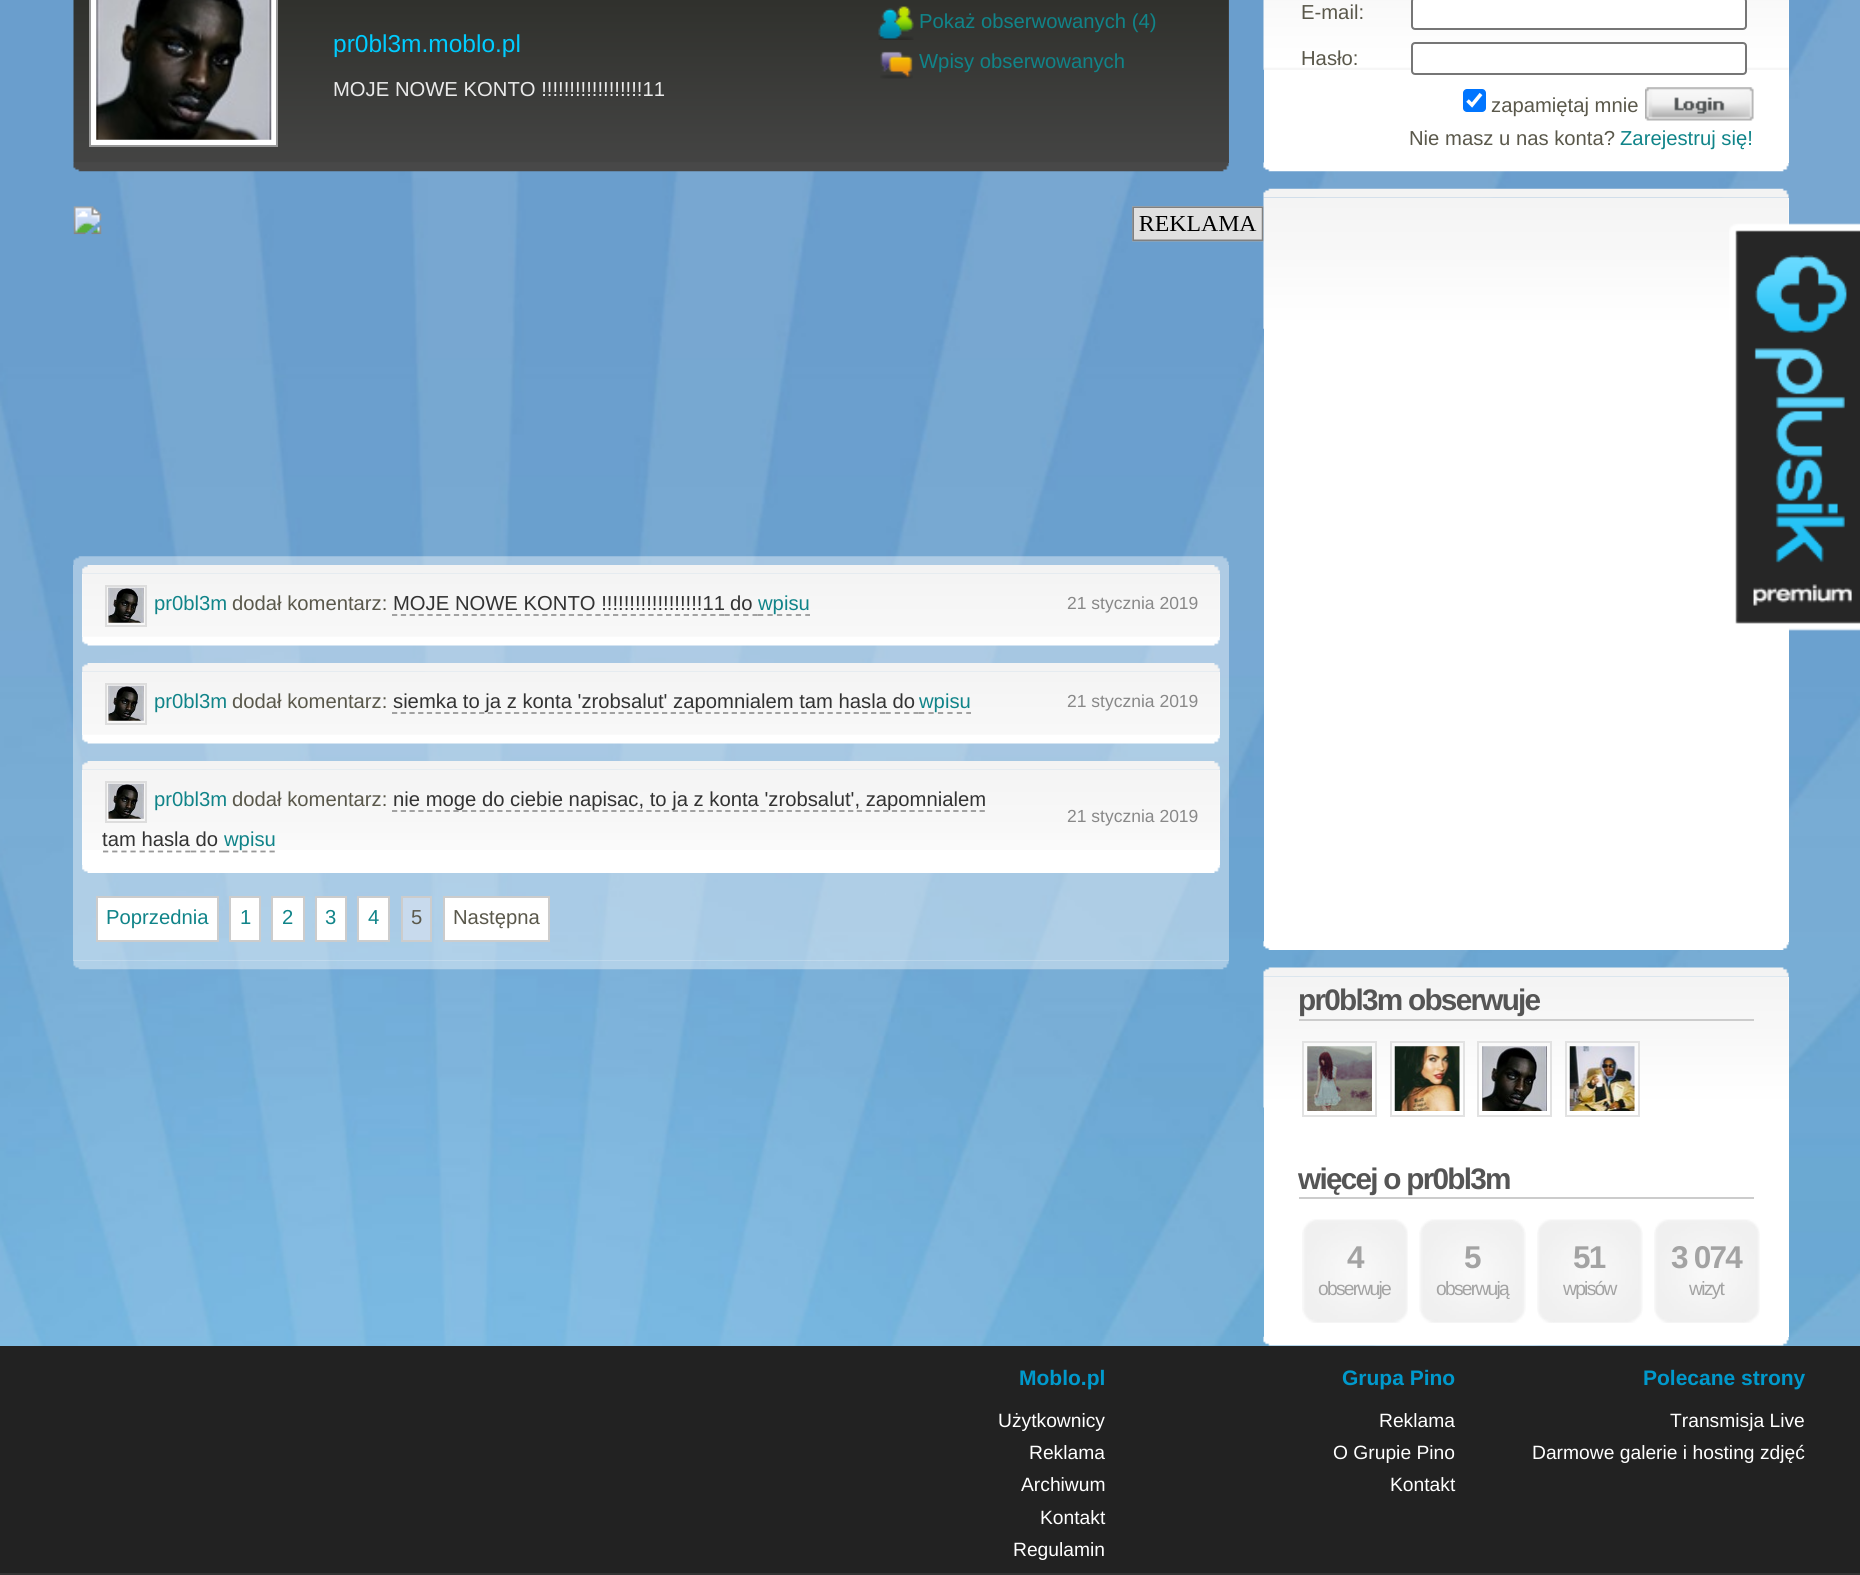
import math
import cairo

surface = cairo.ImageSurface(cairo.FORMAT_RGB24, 1860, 1575)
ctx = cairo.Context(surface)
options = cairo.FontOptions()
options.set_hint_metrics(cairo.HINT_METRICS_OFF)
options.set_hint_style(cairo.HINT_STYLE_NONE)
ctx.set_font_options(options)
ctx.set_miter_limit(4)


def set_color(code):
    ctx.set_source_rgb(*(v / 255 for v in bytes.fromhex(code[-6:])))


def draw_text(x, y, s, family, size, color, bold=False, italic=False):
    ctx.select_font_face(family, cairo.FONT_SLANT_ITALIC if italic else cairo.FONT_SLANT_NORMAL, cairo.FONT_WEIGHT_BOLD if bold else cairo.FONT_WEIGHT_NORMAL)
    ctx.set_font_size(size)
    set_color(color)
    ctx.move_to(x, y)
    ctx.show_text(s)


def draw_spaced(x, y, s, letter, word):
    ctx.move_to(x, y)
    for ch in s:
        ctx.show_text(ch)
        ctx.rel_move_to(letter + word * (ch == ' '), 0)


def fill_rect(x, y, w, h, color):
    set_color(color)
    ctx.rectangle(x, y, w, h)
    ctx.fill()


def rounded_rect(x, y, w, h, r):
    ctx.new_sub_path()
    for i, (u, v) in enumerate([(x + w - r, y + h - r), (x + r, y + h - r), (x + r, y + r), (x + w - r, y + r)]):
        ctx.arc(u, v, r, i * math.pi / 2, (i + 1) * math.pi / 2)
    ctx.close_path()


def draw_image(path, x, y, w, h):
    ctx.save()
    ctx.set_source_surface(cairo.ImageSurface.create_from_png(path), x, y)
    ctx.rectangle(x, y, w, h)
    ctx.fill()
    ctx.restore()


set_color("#ffffff")
ctx.paint()
draw_image("assets/img1.png", 0, 0, 1860, 1346)
fill_rect(74, 0, 1155, 163, "#484848")
draw_image("assets/img2.png", 73, 0, 1156, 163)
set_color("#ffffff")
ctx.rectangle(90, -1, 187, 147)
ctx.fill_preserve()
set_color("#999999")
ctx.stroke()
draw_image("assets/img3.png", 96, 0, 176, 140)
draw_text(333, 52, "pr0bl3m.moblo.pl", "Liberation Sans", 24.5, "#00ccff")
draw_text(333, 96, "MOJE NOWE KONTO !!!!!!!!!!!!!!!!!!11", "Liberation Sans", 20.25, "#eaeaea")
draw_image("assets/img4.png", 878, 6, 36, 34)
draw_text(919, 28, "Pokaż obserwowanych (4)", "Liberation Sans", 20.25, "#108489")
draw_image("assets/img5.png", 880, 51, 33, 28)
draw_text(919, 68, "Wpisy obserwowanych", "Liberation Sans", 20.25, "#108489")
draw_image("assets/img6.png", 73, 162, 1156, 10)
draw_image("assets/img23.png", 1263, 188, 526, 10)
fill_rect(1264, 198, 525, 744, "#ffffff")
draw_image("assets/img24.png", 1263, 197, 526, 132)
draw_image("assets/img7.png", 73, 206, 1191, 36)
draw_image("assets/img8.png", 73, 556, 1156, 9)
ctx.set_source_rgba(1, 1, 1, 0.4)
ctx.rectangle(73, 565, 1156, 396)
ctx.fill()
draw_image("assets/img9.png", 82, 565, 1138, 9)
fill_rect(82, 574, 1138, 63, "#ffffff")
draw_image("assets/img10.png", 82, 573, 1138, 64)
ctx.rectangle(106, 586, 40, 40)
set_color("#dddddd")
ctx.stroke()
draw_image("assets/img11.png", 108, 587, 36, 36)
draw_text(154, 610, "pr0bl3m", "Liberation Sans", 20.25, "#108489")
draw_text(232, 610, "dodał komentarz:", "Liberation Sans", 20.25, "#5a584b")
draw_text(393, 610, "MOJE NOWE KONTO !!!!!!!!!!!!!!!!!!11", "Liberation Sans", 20.25, "#333333")
ctx.new_path()
ctx.move_to(392, 615)
ctx.line_to(724.5, 615)
set_color("#999999")
ctx.set_line_width(1.8)
ctx.set_dash([5.25, 3.59])
ctx.stroke()
draw_text(730, 610, "do", "Liberation Sans", 20.25, "#333333")
ctx.new_path()
ctx.move_to(724.5, 615)
ctx.line_to(758, 615)
set_color("#999999")
ctx.set_dash([5.25, 4.08])
ctx.stroke()
ctx.new_path()
ctx.move_to(758, 615)
ctx.line_to(810, 615)
ctx.set_dash([5.25, 4.2])
ctx.stroke()
draw_text(758, 610, "wpisu", "Liberation Sans", 20.25, "#108489")
draw_text(1067, 609, "21 stycznia 2019", "Liberation Sans", 17.5, "#888888")
draw_image("assets/img12.png", 82, 637, 1138, 9)
draw_image("assets/img13.png", 82, 663, 1138, 9)
fill_rect(82, 672, 1138, 63, "#ffffff")
draw_image("assets/img14.png", 82, 671, 1138, 64)
ctx.rectangle(106, 684, 40, 40)
set_color("#dddddd")
ctx.set_line_width(2)
ctx.set_dash([])
ctx.stroke()
draw_image("assets/img11.png", 108, 685, 36, 36)
draw_text(154, 708, "pr0bl3m", "Liberation Sans", 20.25, "#108489")
draw_text(232, 708, "dodał komentarz:", "Liberation Sans", 20.25, "#5a584b")
ctx.new_path()
ctx.move_to(392, 713)
ctx.line_to(885.5, 713)
set_color("#999999")
ctx.set_line_width(1.8)
ctx.set_dash([5.25, 3.46])
ctx.stroke()
ctx.new_path()
ctx.move_to(885.5, 713)
ctx.line_to(919, 713)
ctx.set_dash([5.25, 4.08])
ctx.stroke()
draw_text(393, 708, "siemka to ja z konta 'zrobsalut' zapomnialem tam hasla do", "Liberation Sans", 20.25, "#333333")
ctx.new_path()
ctx.move_to(919, 713)
ctx.line_to(971, 713)
set_color("#999999")
ctx.set_dash([5.25, 4.2])
ctx.stroke()
draw_text(919, 708, "wpisu", "Liberation Sans", 20.25, "#108489")
draw_text(1067, 707, "21 stycznia 2019", "Liberation Sans", 17.5, "#888888")
draw_image("assets/img15.png", 82, 735, 1138, 9)
draw_image("assets/img16.png", 82, 761, 1138, 9)
fill_rect(82, 770, 1138, 95, "#ffffff")
draw_image("assets/img17.png", 82, 769, 1138, 81)
ctx.rectangle(106, 782, 40, 40)
set_color("#dddddd")
ctx.set_line_width(2)
ctx.set_dash([])
ctx.stroke()
draw_image("assets/img11.png", 108, 783, 36, 36)
draw_text(154, 806, "pr0bl3m", "Liberation Sans", 20.25, "#108489")
draw_text(232, 806, "dodał komentarz:", "Liberation Sans", 20.25, "#5a584b")
ctx.new_path()
ctx.move_to(392, 811)
ctx.line_to(985, 811)
set_color("#999999")
ctx.set_line_width(1.8)
ctx.set_dash([5.25, 3.52])
ctx.stroke()
draw_text(393, 806, "nie moge do ciebie napisac, to ja z konta 'zrobsalut', zapomnialem", "Liberation Sans", 20.25, "#333333")
draw_text(102, 846, "tam hasla do", "Liberation Sans", 20.25, "#333333")
ctx.new_path()
ctx.move_to(103, 851.5)
ctx.line_to(191, 851.5)
set_color("#999999")
ctx.set_dash([5.25, 3.89])
ctx.stroke()
ctx.new_path()
ctx.move_to(191, 851.5)
ctx.line_to(224, 851.5)
ctx.set_dash([5.25, 4.08])
ctx.stroke()
ctx.new_path()
ctx.move_to(224, 851.5)
ctx.line_to(275, 851.5)
ctx.set_dash([5.25, 3.85])
ctx.stroke()
draw_text(224, 846, "wpisu", "Liberation Sans", 20.25, "#108489")
draw_text(1067, 822, "21 stycznia 2019", "Liberation Sans", 17.5, "#888888")
draw_image("assets/img18.png", 82, 865, 1138, 8)
set_color("#ffffff")
ctx.rectangle(97, 897, 121, 44)
ctx.fill_preserve()
set_color("#cccccc")
ctx.set_line_width(2)
ctx.set_dash([])
ctx.stroke()
draw_text(106, 924, "Poprzednia", "Liberation Sans", 20.25, "#108489")
set_color("#ffffff")
ctx.rectangle(230, 897, 30, 44)
ctx.fill_preserve()
set_color("#cccccc")
ctx.stroke()
draw_text(240, 924, "1", "Liberation Sans", 20.25, "#108489")
set_color("#ffffff")
ctx.rectangle(272, 897, 32, 44)
ctx.fill_preserve()
set_color("#cccccc")
ctx.stroke()
draw_text(282, 924, "2", "Liberation Sans", 20.25, "#108489")
set_color("#ffffff")
ctx.rectangle(316, 897, 30, 44)
ctx.fill_preserve()
set_color("#cccccc")
ctx.stroke()
draw_text(325, 924, "3", "Liberation Sans", 20.25, "#108489")
set_color("#ffffff")
ctx.rectangle(358, 897, 31, 44)
ctx.fill_preserve()
set_color("#cccccc")
ctx.stroke()
draw_text(368, 924, "4", "Liberation Sans", 20.25, "#108489")
set_color("#c8daed")
ctx.rectangle(402, 897, 29, 44)
ctx.fill_preserve()
set_color("#cccccc")
ctx.stroke()
draw_text(411, 924, "5", "Liberation Sans", 20.25, "#5a584b")
set_color("#ffffff")
ctx.rectangle(444, 897, 105, 44)
ctx.fill_preserve()
set_color("#cccccc")
ctx.stroke()
draw_text(453, 924, "Następna", "Liberation Sans", 20.25, "#5a584b")
draw_image("assets/img19.png", 73, 960, 1156, 10)
fill_rect(1264, 0, 525, 163, "#ffffff")
draw_image("assets/img20.png", 1263, 0, 526, 70)
draw_text(1301, 19, "E-mail:", "Liberation Sans", 20.25, "#5a584b")
set_color("#ffffff")
rounded_rect(1412, -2, 334, 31, 3)
ctx.fill_preserve()
set_color("#767676")
ctx.stroke()
draw_text(1301, 65, "Hasło:", "Liberation Sans", 20.25, "#5a584b")
set_color("#ffffff")
rounded_rect(1412, 43, 334, 31, 3)
ctx.fill_preserve()
set_color("#767676")
ctx.stroke()
set_color("#0075ff")
rounded_rect(1463, 89, 23, 23, 4)
ctx.fill()
ctx.new_path()
ctx.move_to(1467.5, 100.5)
ctx.line_to(1472, 105)
ctx.line_to(1481, 94)
set_color("#ffffff")
ctx.set_line_width(3.6)
ctx.stroke()
draw_text(1491, 112, "zapamiętaj mnie", "Liberation Sans", 20.25, "#5a584b")
draw_image("assets/img21.png", 1645, 87, 109, 34)
draw_text(1409, 145, "Nie masz u nas konta?", "Liberation Sans", 20.25, "#5a584b")
draw_text(1620, 145, "Zarejestruj się!", "Liberation Sans", 20.25, "#108489")
draw_image("assets/img22.png", 1263, 162, 526, 10)
draw_image("assets/img25.png", 1263, 941, 526, 9)
draw_image("assets/img26.png", 1263, 967, 526, 10)
fill_rect(1264, 977, 525, 360, "#ffffff")
draw_image("assets/img27.png", 1263, 976, 526, 132)
fill_rect(1299, 1019, 455, 2, "#cccccc")
ctx.select_font_face("Liberation Sans", cairo.FONT_SLANT_NORMAL, cairo.FONT_WEIGHT_BOLD)
ctx.set_font_size(29.75)
set_color("#555555")
draw_spaced(1298, 1010, "pr0bl3m obserwuje", -1.75, 0)
ctx.rectangle(1303, 1042, 73, 74)
set_color("#e2e2e2")
ctx.set_line_width(2)
ctx.stroke()
ctx.rectangle(1391, 1042, 73, 74)
ctx.stroke()
ctx.rectangle(1478, 1042, 73, 74)
ctx.stroke()
ctx.rectangle(1566, 1042, 73, 74)
ctx.stroke()
draw_image("assets/img28.png", 1307, 1046, 65, 65)
draw_image("assets/img29.png", 1394, 1046, 66, 65)
draw_image("assets/img30.png", 1482, 1046, 65, 65)
draw_image("assets/img31.png", 1569, 1046, 66, 65)
fill_rect(1299, 1197, 455, 2, "#cccccc")
set_color("#555555")
draw_spaced(1298, 1189, "więcej o pr0bl3m", -1.75, 0)
draw_image("assets/img32.png", 1302, 1219, 106, 104)
ctx.set_font_size(31.5)
set_color("#a3a3a3")
draw_spaced(1347, 1268, "4", -1.75, 0)
ctx.select_font_face("Liberation Sans")
ctx.set_font_size(19.25)
draw_spaced(1318, 1295, "obserwuje", -1.75, 0)
draw_image("assets/img33.png", 1419, 1219, 107, 104)
ctx.select_font_face("Liberation Sans", cairo.FONT_SLANT_NORMAL, cairo.FONT_WEIGHT_BOLD)
ctx.set_font_size(31.5)
draw_spaced(1464, 1268, "5", -1.75, 0)
ctx.select_font_face("Liberation Sans")
ctx.set_font_size(19.25)
draw_spaced(1436, 1295, "obserwują", -1.75, 0)
draw_image("assets/img34.png", 1537, 1219, 106, 104)
ctx.select_font_face("Liberation Sans", cairo.FONT_SLANT_NORMAL, cairo.FONT_WEIGHT_BOLD)
ctx.set_font_size(31.5)
draw_spaced(1573, 1268, "51", -1.75, 0)
ctx.select_font_face("Liberation Sans")
ctx.set_font_size(19.25)
draw_spaced(1563, 1295, "wpisów", -1.75, 0)
draw_image("assets/img35.png", 1654, 1219, 106, 104)
ctx.select_font_face("Liberation Sans", cairo.FONT_SLANT_NORMAL, cairo.FONT_WEIGHT_BOLD)
ctx.set_font_size(31.5)
draw_spaced(1671, 1268, "3 074", -1.75, 0)
ctx.select_font_face("Liberation Sans")
ctx.set_font_size(19.25)
draw_spaced(1689, 1295, "wizyt", -1.75, 0)
draw_image("assets/img36.png", 1263, 1336, 526, 10)
draw_image("assets/img37.png", 1729, 223, 131, 408)
fill_rect(0, 1346, 1860, 227, "#222222")
draw_text(1019, 1385, "Moblo.pl", "Liberation Sans", 21, "#0099cc", bold=True)
draw_text(998, 1427, "Użytkownicy", "Liberation Sans", 19.25, "#ffffff")
draw_text(1029, 1459, "Reklama", "Liberation Sans", 19.25, "#ffffff")
draw_text(1021, 1491, "Archiwum", "Liberation Sans", 19.25, "#ffffff")
draw_text(1040, 1524, "Kontakt", "Liberation Sans", 19.25, "#ffffff")
draw_text(1013, 1556, "Regulamin", "Liberation Sans", 19.25, "#ffffff")
draw_text(1342, 1385, "Grupa Pino", "Liberation Sans", 21, "#0099cc", bold=True)
draw_text(1379, 1427, "Reklama", "Liberation Sans", 19.25, "#ffffff")
draw_text(1333, 1459, "O Grupie Pino", "Liberation Sans", 19.25, "#ffffff")
draw_text(1390, 1491, "Kontakt", "Liberation Sans", 19.25, "#ffffff")
draw_text(1643, 1385, "Polecane strony", "Liberation Sans", 21, "#0099cc", bold=True)
draw_text(1670, 1427, "Transmisja Live", "Liberation Sans", 19.25, "#ffffff")
draw_text(1532, 1459, "Darmowe galerie i hosting zdjęć", "Liberation Sans", 19.25, "#ffffff")
fill_rect(0, 1573, 1860, 2, "#333333")
surface.write_to_png("output.png")
